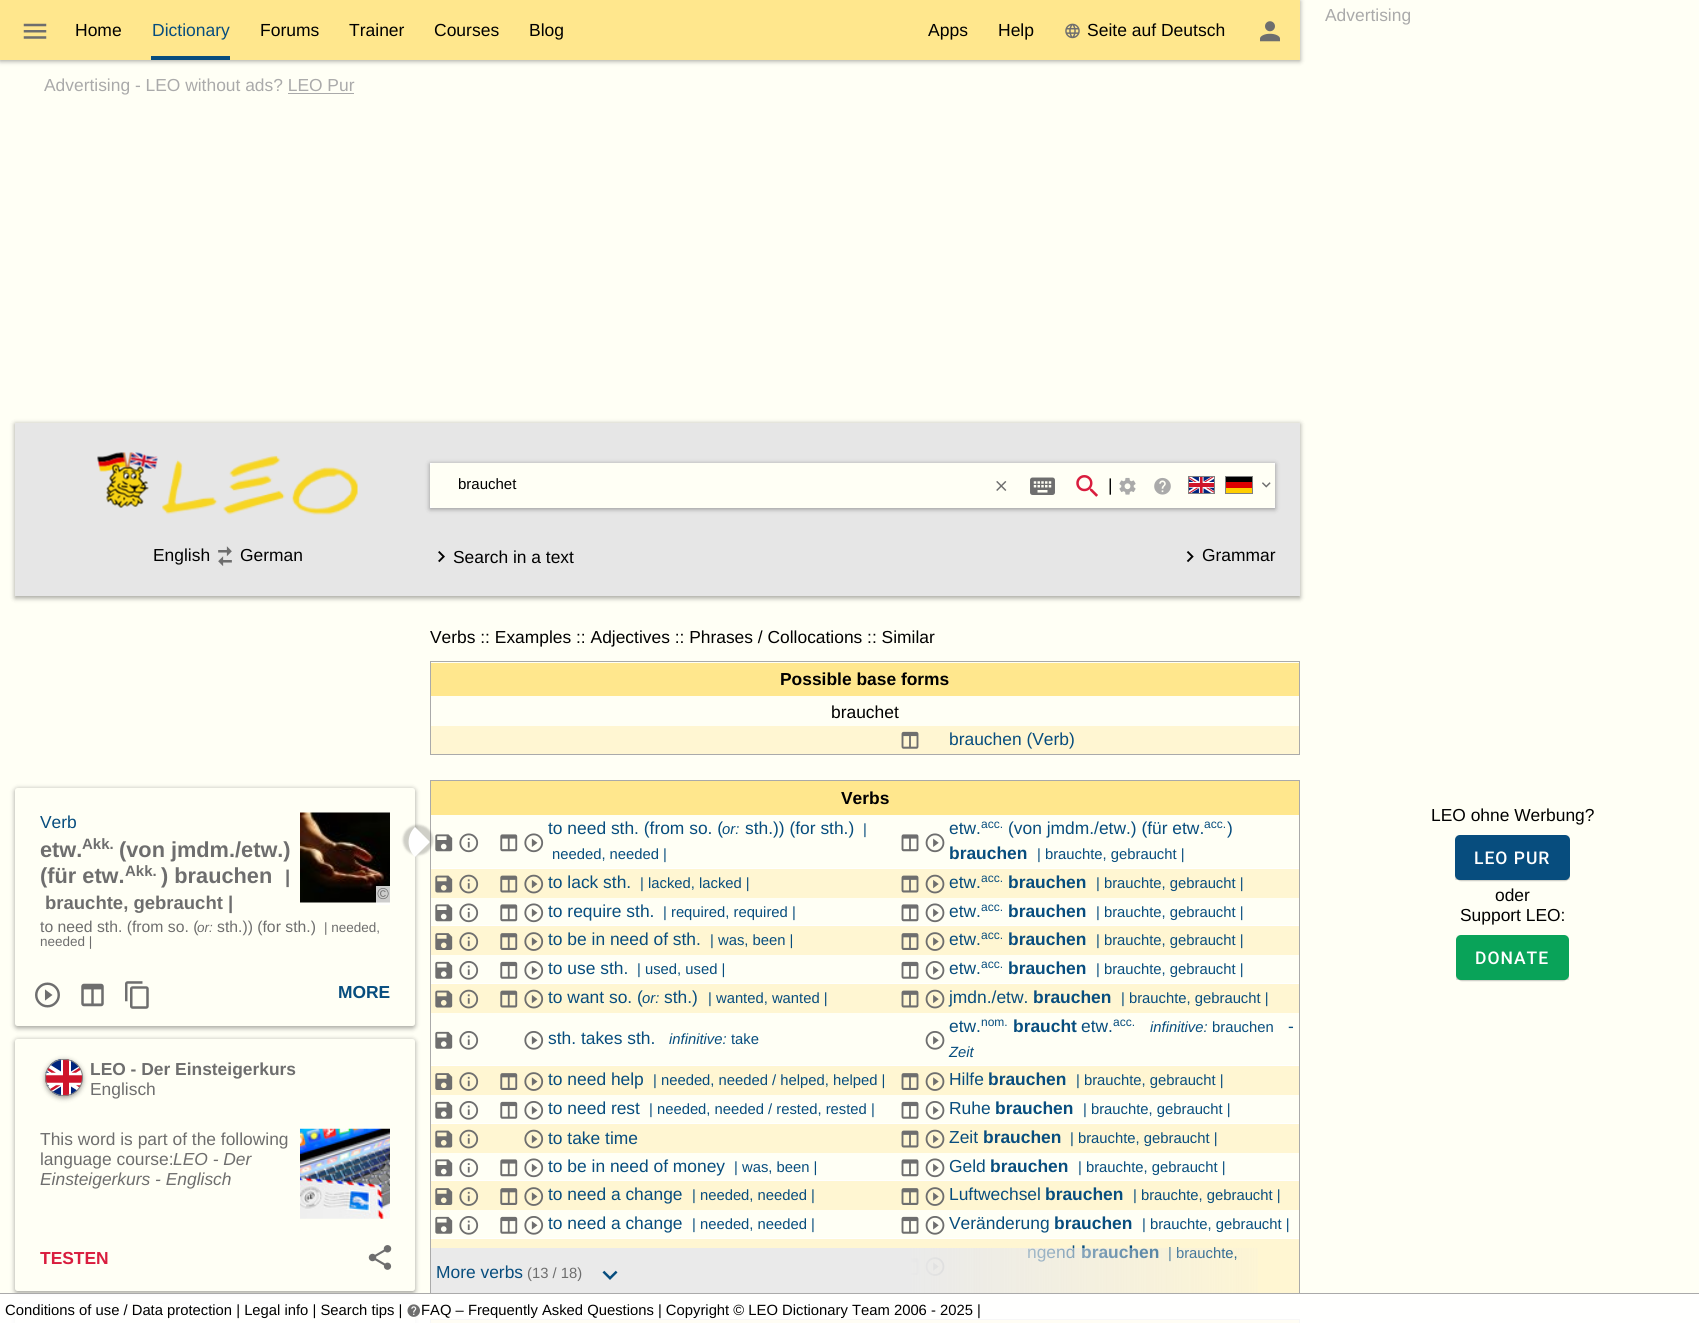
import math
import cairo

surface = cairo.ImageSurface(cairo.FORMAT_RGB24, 1699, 1323)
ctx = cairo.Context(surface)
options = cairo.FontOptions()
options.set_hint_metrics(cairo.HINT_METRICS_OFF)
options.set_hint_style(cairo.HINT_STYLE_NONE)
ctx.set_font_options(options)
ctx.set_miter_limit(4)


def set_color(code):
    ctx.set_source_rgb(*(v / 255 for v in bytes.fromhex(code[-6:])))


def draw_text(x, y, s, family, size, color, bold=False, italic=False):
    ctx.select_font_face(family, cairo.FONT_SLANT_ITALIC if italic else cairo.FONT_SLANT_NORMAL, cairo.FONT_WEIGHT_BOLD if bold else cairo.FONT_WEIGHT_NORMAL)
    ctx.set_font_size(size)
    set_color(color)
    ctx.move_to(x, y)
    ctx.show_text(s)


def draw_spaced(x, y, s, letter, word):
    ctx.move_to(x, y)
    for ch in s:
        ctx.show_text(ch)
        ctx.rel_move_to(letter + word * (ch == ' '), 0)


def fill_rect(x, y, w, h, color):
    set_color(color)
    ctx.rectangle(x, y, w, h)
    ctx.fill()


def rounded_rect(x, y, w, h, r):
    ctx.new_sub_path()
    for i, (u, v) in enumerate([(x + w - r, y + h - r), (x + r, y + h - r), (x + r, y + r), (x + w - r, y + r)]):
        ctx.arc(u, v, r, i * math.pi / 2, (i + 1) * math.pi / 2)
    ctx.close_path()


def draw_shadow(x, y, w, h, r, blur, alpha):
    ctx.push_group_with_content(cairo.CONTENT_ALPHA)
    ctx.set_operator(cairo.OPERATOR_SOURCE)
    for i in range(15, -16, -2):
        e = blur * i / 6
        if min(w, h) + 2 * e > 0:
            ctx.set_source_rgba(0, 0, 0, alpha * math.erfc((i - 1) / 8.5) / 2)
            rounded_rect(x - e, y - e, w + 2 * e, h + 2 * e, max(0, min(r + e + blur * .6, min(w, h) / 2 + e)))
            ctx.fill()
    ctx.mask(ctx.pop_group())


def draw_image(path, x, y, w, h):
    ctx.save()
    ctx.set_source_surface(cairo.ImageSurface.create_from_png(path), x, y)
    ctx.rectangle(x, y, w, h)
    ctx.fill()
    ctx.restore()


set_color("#fffff5")
ctx.paint()
set_color("#000000")
draw_shadow(0, 1, 1300, 60, 0, 2.5, 0.37)
fill_rect(0, 0, 1300, 60, "#ffe78d")
draw_image("assets/img1.png", 23, 23, 24, 16)
draw_text(75, 36, "Home", "Liberation Sans", 17.5, "#000000")
draw_text(152, 36, "Dictionary", "Liberation Sans", 17.5, "#074d7e")
fill_rect(151, 56, 79, 4, "#074d7e")
draw_text(260, 36, "Forums", "Liberation Sans", 17.5, "#000000")
draw_text(349, 36, "Trainer", "Liberation Sans", 17.5, "#000000")
draw_text(434, 36, "Courses", "Liberation Sans", 17.5, "#000000")
draw_text(529, 36, "Blog", "Liberation Sans", 17.5, "#000000")
draw_text(928, 36, "Apps", "Liberation Sans", 17.5, "#000000")
draw_text(998, 36, "Help", "Liberation Sans", 17.5, "#000000")
draw_image("assets/img2.png", 1065, 23, 15, 16)
draw_text(1087, 36, "Seite auf Deutsch", "Liberation Sans", 17.5, "#000000")
draw_image("assets/img3.png", 1260, 21, 20, 21)
draw_text(44, 91, "Advertising - LEO without ads? LEO Pur", "Liberation Sans", 17.4, "#aaaaaa")
fill_rect(288, 93, 66, 1, "#aaaaaa")
set_color("#000000")
draw_shadow(15, 424, 1285, 174, 0, 2.5, 0.37)
fill_rect(15, 423, 1285, 173, "#e6e6e6")
draw_image("assets/img4.png", 97, 452, 61, 56)
draw_image("assets/img5.png", 162, 455, 196, 60)
set_color("#000000")
draw_shadow(430, 464, 845, 45, 0, 2.5, 0.37)
fill_rect(430, 463, 845, 45, "#ffffff")
set_color("#fffff5")
rounded_rect(430, 463, 845, 45, 4)
ctx.fill()
draw_text(458, 489, "brauchet", "Liberation Sans", 15, "#000000")
draw_image("assets/img6.png", 996, 481, 11, 10)
draw_image("assets/img7.png", 1030, 477, 25, 18)
draw_image("assets/img8.png", 1076, 475, 22, 22)
draw_text(1108, 491, "|", "Liberation Sans", 17.4, "#000000")
draw_image("assets/img9.png", 1119, 477, 17, 18)
draw_image("assets/img10.png", 1154, 477, 17, 18)
draw_image("assets/img11.png", 1189, 477, 25, 16)
ctx.rectangle(1188.5, 476.5, 26, 17)
set_color("#808080")
ctx.set_line_width(1)
ctx.stroke()
fill_rect(1225, 477, 28, 5, "#000000")
fill_rect(1225, 482, 28, 6, "#dd0000")
fill_rect(1225, 488, 28, 5, "#ffce00")
ctx.rectangle(1225.5, 476.5, 27, 17)
set_color("#808080")
ctx.stroke()
draw_image("assets/img12.png", 1262, 482, 9, 6)
draw_text(153, 561, "English", "Liberation Sans", 17.4, "#000000")
draw_image("assets/img13.png", 218, 546, 14, 20)
draw_text(240, 561, "German", "Liberation Sans", 17.4, "#000000")
draw_image("assets/img14.png", 438, 551, 7, 12)
draw_text(453, 563, "Search in a text", "Liberation Sans", 17.4, "#000000")
draw_image("assets/img15.png", 1186, 551, 8, 12)
draw_text(1202, 561, "Grammar", "Liberation Sans", 17.4, "#000000")
draw_text(1325, 21, "Advertising", "Liberation Sans", 17.4, "#aaaaaa")
draw_text(1431, 821, "LEO ohne Werbung?", "Liberation Sans", 17.4, "#000000")
ctx.save()
ctx.rectangle(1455, 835, 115, 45)
ctx.clip()
set_color("#000000")
draw_shadow(1455, 836, 115, 45, 5, 3, 0.12)
draw_shadow(1455, 838, 115, 45, 5, 1, 0.14)
ctx.restore()
set_color("#000000")
draw_shadow(1458, 841, 110, 40, 2.5, 0.5, 0.2)
set_color("#074d7e")
rounded_rect(1455, 835, 115, 45, 5)
ctx.fill()
ctx.select_font_face("Roboto Medium")
ctx.set_font_size(17.5)
set_color("#ffffff")
draw_spaced(1474, 864, "LEO PUR", 1, 0)
draw_text(1495, 901, "oder", "Liberation Sans", 17.4, "#000000")
draw_text(1460, 921, "Support LEO:", "Liberation Sans", 17.4, "#000000")
ctx.save()
ctx.rectangle(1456, 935, 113, 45)
ctx.clip()
set_color("#000000")
draw_shadow(1456, 936, 113, 45, 5, 3, 0.12)
draw_shadow(1456, 938, 113, 45, 5, 1, 0.14)
ctx.restore()
set_color("#000000")
draw_shadow(1459, 941, 107, 40, 2.5, 0.5, 0.2)
set_color("#09a359")
rounded_rect(1456, 935, 113, 45, 5)
ctx.fill()
ctx.select_font_face("Roboto Medium")
ctx.set_font_size(17.5)
set_color("#ffffff")
draw_spaced(1475, 964, "DONATE", 1, 0)
set_color("#000000")
draw_shadow(15, 789, 400, 239, 2.5, 2.5, 0.37)
set_color("#fffff5")
rounded_rect(15, 788, 400, 238, 2.5)
ctx.fill()
draw_image("assets/img16.png", 300, 812, 90, 91)
draw_text(40, 828, "Verb", "Liberation Sans", 17.4, "#074d7e")
draw_text(40, 857, "etw.", "Liberation Sans", 21.75, "#6e6e6e", bold=True)
ctx.save()
ctx.rectangle(40, 838, 255, 78)
ctx.clip()
draw_text(82, 849, "Akk.", "Liberation Sans", 15, "#6e6e6e", bold=True)
ctx.restore()
draw_text(119, 857, "(von jmdm./etw.)", "Liberation Sans", 21.75, "#6e6e6e", bold=True)
draw_text(40, 883, "(für etw.", "Liberation Sans", 21.75, "#6e6e6e", bold=True)
draw_text(125, 876, "Akk.", "Liberation Sans", 15, "#6e6e6e", bold=True)
draw_text(161, 883, ") brauchen", "Liberation Sans", 21.75, "#6e6e6e", bold=True)
draw_text(285, 883, "|", "Liberation Sans", 18.5, "#6e6e6e", bold=True)
draw_text(45, 909, "brauchte, gebraucht |", "Liberation Sans", 18.5, "#6e6e6e", bold=True)
draw_text(40, 932, "to need sth. (from so. (", "Liberation Sans", 15.75, "#6e6e6e")
draw_text(197, 932, "or:", "Liberation Sans", 13.5, "#6e6e6e", italic=True)
draw_text(217, 932, "sth.)) (for sth.)", "Liberation Sans", 15.75, "#6e6e6e")
draw_text(324, 932, "| needed,", "Liberation Sans", 13.5, "#6e6e6e")
draw_text(40, 946, "needed |", "Liberation Sans", 13.5, "#6e6e6e")
ctx.rectangle(430.5, 780.5, 869, 513)
set_color("#aaaaaa")
ctx.stroke()
draw_image("assets/img24.png", 435, 834, 18, 18)
set_color("#000000")
draw_shadow(403, 825, 30, 30, 30, 1, 0.19)
set_color("#ffffff")
ctx.new_path()
ctx.move_to(415, 827)
ctx.line_to(429.5, 841.5)
ctx.curve_to(429.5, 841.5, 429.5, 842, 429.5, 842.5)
ctx.line_to(415, 857)
ctx.curve_to(406.5, 848.5, 406.5, 835.5, 415, 827)
ctx.close_path()
ctx.fill()
ctx.set_source_rgba(1, 1, 1, 0.8)
ctx.rectangle(376, 886, 14, 19)
ctx.fill()
draw_text(377, 899, "©", "Liberation Sans", 15.75, "#6e6e6e", italic=True)
draw_image("assets/img17.png", 35, 982, 25, 26)
draw_image("assets/img18.png", 81, 983, 23, 24)
draw_image("assets/img19.png", 125, 981, 24, 28)
draw_text(338, 998, "MORE", "Liberation Sans", 17.4, "#074d7e", bold=True)
set_color("#000000")
draw_shadow(15, 1040, 400, 253, 2.5, 2.5, 0.37)
set_color("#fffff5")
rounded_rect(15, 1039, 400, 252, 2.5)
ctx.fill()
set_color("#000000")
draw_shadow(45, 1060, 38, 38, 19, 2.5, 0.37)
draw_image("assets/img20.png", 45, 1059, 38, 38)
rounded_rect(45.5, 1059.5, 37, 36, 18)
set_color("#808080")
ctx.stroke()
draw_text(90, 1075, "LEO - Der Einsteigerkurs", "Liberation Sans", 17.4, "#6e6e6e", bold=True)
draw_text(90, 1095, "Englisch", "Liberation Sans", 17.4, "#6e6e6e")
draw_text(40, 1145, "This word is part of the following", "Liberation Sans", 17.4, "#6e6e6e")
draw_image("assets/img21.png", 300, 1128, 90, 91)
draw_text(40, 1165, "language course:", "Liberation Sans", 17.4, "#6e6e6e")
draw_text(173, 1165, "LEO - Der", "Liberation Sans", 17.4, "#6e6e6e", italic=True)
draw_text(40, 1185, "Einsteigerkurs - Englisch", "Liberation Sans", 17.4, "#6e6e6e", italic=True)
draw_text(40, 1264, "TESTEN", "Liberation Sans", 17.4, "#d91d3e", bold=True)
draw_image("assets/img22.png", 368, 1245, 24, 25)
set_color("#000000")
draw_shadow(15, 1305, 400, 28, 2.5, 2.5, 0.37)
set_color("#fffff5")
ctx.new_path()
ctx.move_to(17.5, 1304)
ctx.line_to(412.5, 1304)
ctx.curve_to(414, 1304, 415, 1305, 415, 1306.5)
ctx.line_to(415, 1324)
ctx.line_to(15, 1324)
ctx.line_to(15, 1306.5)
ctx.curve_to(15, 1305, 16, 1304, 17.5, 1304)
ctx.close_path()
ctx.fill()
draw_text(430, 643, "Verbs :: Examples :: Adjectives :: Phrases / Collocations :: Similar", "Liberation Sans", 17.4, "#000000")
ctx.rectangle(430.5, 661.5, 869, 93)
set_color("#aaaaaa")
ctx.stroke()
fill_rect(431, 663, 868, 33, "#ffe78d")
draw_text(780, 685, "Possible base forms", "Liberation Sans", 17.4, "#000000", bold=True)
draw_text(831, 718, "brauchet", "Liberation Sans", 17.4, "#000000")
fill_rect(431, 726, 868, 28, "#fff6d2")
draw_image("assets/img23.png", 901, 731, 18, 18)
draw_text(949, 745, "brauchen (Verb)", "Liberation Sans", 17.4, "#074d7e")
fill_rect(431, 781, 868, 34, "#ffe78d")
draw_text(841, 804, "Verbs", "Liberation Sans", 17.4, "#000000", bold=True)
draw_image("assets/img25.png", 459, 833, 20, 20)
draw_image("assets/img26.png", 500, 834, 18, 18)
draw_image("assets/img27.png", 524, 833, 20, 20)
draw_text(548, 834, "to need sth. (from so. (", "Liberation Sans", 17.4, "#074d7e")
draw_text(722, 834, "or:", "Liberation Sans", 14.8, "#074d7e", italic=True)
draw_text(745, 834, "sth.)) (for sth.)", "Liberation Sans", 17.4, "#074d7e")
draw_text(863, 834, "|", "Liberation Sans", 14.8, "#074d7e")
draw_text(552, 859, "needed, needed |", "Liberation Sans", 14.8, "#074d7e")
draw_image("assets/img28.png", 901, 834, 18, 18)
draw_image("assets/img29.png", 925, 833, 20, 20)
fill_rect(431, 868, 868, 1, "#ffffff")
draw_text(949, 834, "etw.", "Liberation Sans", 17.4, "#074d7e")
draw_text(981, 828, "acc.", "Liberation Sans", 12, "#074d7e")
draw_text(1008, 834, "(von jmdm./etw.) (für etw.", "Liberation Sans", 17.4, "#074d7e")
draw_text(1204, 828, "acc.", "Liberation Sans", 12, "#074d7e")
draw_text(1227, 834, ")", "Liberation Sans", 17.4, "#074d7e")
draw_text(949, 859, "brauchen", "Liberation Sans", 17.4, "#074d7e", bold=True)
draw_text(1037, 859, "| brauchte, gebraucht |", "Liberation Sans", 14.8, "#074d7e")
fill_rect(431, 869, 868, 29, "#fff6d2")
draw_image("assets/img30.png", 435, 875, 18, 18)
draw_image("assets/img31.png", 459, 874, 20, 20)
draw_image("assets/img32.png", 500, 875, 18, 18)
draw_image("assets/img33.png", 524, 874, 20, 20)
draw_text(548, 888, "to lack sth.", "Liberation Sans", 17.4, "#074d7e")
draw_text(640, 888, "| lacked, lacked |", "Liberation Sans", 14.8, "#074d7e")
draw_image("assets/img34.png", 901, 875, 18, 18)
draw_image("assets/img35.png", 925, 874, 20, 20)
draw_text(949, 888, "etw.", "Liberation Sans", 17.4, "#074d7e")
draw_text(981, 882, "acc.", "Liberation Sans", 12, "#074d7e")
draw_text(1008, 888, "brauchen", "Liberation Sans", 17.4, "#074d7e", bold=True)
draw_text(1096, 888, "| brauchte, gebraucht |", "Liberation Sans", 14.8, "#074d7e")
draw_image("assets/img24.png", 435, 904, 18, 18)
draw_image("assets/img25.png", 459, 903, 20, 20)
draw_image("assets/img26.png", 500, 904, 18, 18)
draw_image("assets/img27.png", 524, 903, 20, 20)
draw_text(548, 917, "to require sth.", "Liberation Sans", 17.4, "#074d7e")
draw_text(663, 917, "| required, required |", "Liberation Sans", 14.8, "#074d7e")
draw_image("assets/img28.png", 901, 904, 18, 18)
draw_image("assets/img29.png", 925, 903, 20, 20)
fill_rect(431, 925, 868, 1, "#ffffff")
draw_text(949, 917, "etw.", "Liberation Sans", 17.4, "#074d7e")
draw_text(981, 911, "acc.", "Liberation Sans", 12, "#074d7e")
draw_text(1008, 917, "brauchen", "Liberation Sans", 17.4, "#074d7e", bold=True)
draw_text(1096, 917, "| brauchte, gebraucht |", "Liberation Sans", 14.8, "#074d7e")
fill_rect(431, 926, 868, 29, "#fff6d2")
draw_image("assets/img36.png", 435, 933, 18, 17)
draw_image("assets/img37.png", 459, 932, 20, 19)
draw_image("assets/img38.png", 500, 933, 18, 17)
draw_image("assets/img39.png", 524, 932, 20, 19)
draw_text(548, 945, "to be in need of sth.", "Liberation Sans", 17.4, "#074d7e")
draw_text(710, 945, "| was, been |", "Liberation Sans", 14.8, "#074d7e")
draw_image("assets/img40.png", 901, 933, 18, 17)
draw_image("assets/img41.png", 925, 932, 20, 19)
draw_text(949, 945, "etw.", "Liberation Sans", 17.4, "#074d7e")
draw_text(981, 939, "acc.", "Liberation Sans", 12, "#074d7e")
draw_text(1008, 945, "brauchen", "Liberation Sans", 17.4, "#074d7e", bold=True)
draw_text(1096, 945, "| brauchte, gebraucht |", "Liberation Sans", 14.8, "#074d7e")
draw_image("assets/img42.png", 435, 961, 18, 18)
draw_image("assets/img43.png", 459, 961, 20, 19)
draw_image("assets/img44.png", 500, 961, 18, 18)
draw_image("assets/img45.png", 524, 961, 20, 19)
draw_text(548, 974, "to use sth.", "Liberation Sans", 17.4, "#074d7e")
draw_text(637, 974, "| used, used |", "Liberation Sans", 14.8, "#074d7e")
draw_image("assets/img46.png", 901, 961, 18, 18)
draw_image("assets/img47.png", 925, 961, 20, 19)
fill_rect(431, 983, 868, 1, "#ffffff")
draw_text(949, 974, "etw.", "Liberation Sans", 17.4, "#074d7e")
draw_text(981, 968, "acc.", "Liberation Sans", 12, "#074d7e")
draw_text(1008, 974, "brauchen", "Liberation Sans", 17.4, "#074d7e", bold=True)
draw_text(1096, 974, "| brauchte, gebraucht |", "Liberation Sans", 14.8, "#074d7e")
fill_rect(431, 984, 868, 29, "#fff6d2")
draw_image("assets/img30.png", 435, 990, 18, 18)
draw_image("assets/img31.png", 459, 989, 20, 20)
draw_image("assets/img32.png", 500, 990, 18, 18)
draw_image("assets/img33.png", 524, 989, 20, 20)
draw_text(548, 1003, "to want so. (", "Liberation Sans", 17.4, "#074d7e")
draw_text(642, 1003, "or:", "Liberation Sans", 14.8, "#074d7e", italic=True)
draw_text(664, 1003, "sth.)", "Liberation Sans", 17.4, "#074d7e")
draw_text(708, 1003, "| wanted, wanted |", "Liberation Sans", 14.8, "#074d7e")
draw_image("assets/img34.png", 901, 990, 18, 18)
draw_image("assets/img35.png", 925, 989, 20, 20)
draw_text(949, 1003, "jmdn./etw.", "Liberation Sans", 17.4, "#074d7e")
draw_text(1033, 1003, "brauchen", "Liberation Sans", 17.4, "#074d7e", bold=True)
draw_text(1121, 1003, "| brauchte, gebraucht |", "Liberation Sans", 14.8, "#074d7e")
draw_image("assets/img42.png", 435, 1031, 18, 18)
draw_image("assets/img43.png", 459, 1031, 20, 19)
draw_image("assets/img45.png", 524, 1031, 20, 19)
draw_text(548, 1044, "sth. takes sth.", "Liberation Sans", 17.4, "#074d7e")
draw_text(669, 1044, "infinitive:", "Liberation Sans", 14.8, "#074d7e", italic=True)
draw_text(731, 1044, "take", "Liberation Sans", 14.8, "#074d7e")
draw_image("assets/img47.png", 925, 1031, 20, 19)
fill_rect(431, 1065, 868, 1, "#ffffff")
draw_text(949, 1032, "etw.", "Liberation Sans", 17.4, "#074d7e")
draw_text(981, 1026, "nom.", "Liberation Sans", 12, "#074d7e")
draw_text(1013, 1032, "braucht", "Liberation Sans", 17.4, "#074d7e", bold=True)
draw_text(1081, 1032, "etw.", "Liberation Sans", 17.4, "#074d7e")
draw_text(1113, 1026, "acc.", "Liberation Sans", 12, "#074d7e")
draw_text(1150, 1032, "infinitive:", "Liberation Sans", 14.8, "#074d7e", italic=True)
draw_text(1212, 1032, "brauchen", "Liberation Sans", 14.8, "#074d7e")
draw_text(1288, 1032, "-", "Liberation Sans", 17.4, "#074d7e")
draw_text(949, 1057, "Zeit", "Liberation Sans", 14.8, "#074d7e", italic=True)
fill_rect(431, 1066, 868, 29, "#fff6d2")
draw_image("assets/img36.png", 435, 1073, 18, 17)
draw_image("assets/img37.png", 459, 1072, 20, 19)
draw_image("assets/img38.png", 500, 1073, 18, 17)
draw_image("assets/img39.png", 524, 1072, 20, 19)
draw_text(548, 1085, "to need help", "Liberation Sans", 17.4, "#074d7e")
draw_text(653, 1085, "| needed, needed / helped, helped |", "Liberation Sans", 14.8, "#074d7e")
draw_image("assets/img40.png", 901, 1073, 18, 17)
draw_image("assets/img41.png", 925, 1072, 20, 19)
draw_text(949, 1085, "Hilfe", "Liberation Sans", 17.4, "#074d7e")
draw_text(988, 1085, "brauchen", "Liberation Sans", 17.4, "#074d7e", bold=True)
draw_text(1076, 1085, "| brauchte, gebraucht |", "Liberation Sans", 14.8, "#074d7e")
draw_image("assets/img42.png", 435, 1101, 18, 18)
draw_image("assets/img43.png", 459, 1101, 20, 19)
draw_image("assets/img44.png", 500, 1101, 18, 18)
draw_image("assets/img45.png", 524, 1101, 20, 19)
draw_text(548, 1114, "to need rest", "Liberation Sans", 17.4, "#074d7e")
draw_text(649, 1114, "| needed, needed / rested, rested |", "Liberation Sans", 14.8, "#074d7e")
draw_image("assets/img46.png", 901, 1101, 18, 18)
draw_image("assets/img47.png", 925, 1101, 20, 19)
fill_rect(431, 1123, 868, 1, "#ffffff")
draw_text(949, 1114, "Ruhe", "Liberation Sans", 17.4, "#074d7e")
draw_text(995, 1114, "brauchen", "Liberation Sans", 17.4, "#074d7e", bold=True)
draw_text(1083, 1114, "| brauchte, gebraucht |", "Liberation Sans", 14.8, "#074d7e")
fill_rect(431, 1124, 868, 29, "#fff6d2")
draw_image("assets/img30.png", 435, 1130, 18, 18)
draw_image("assets/img31.png", 459, 1129, 20, 20)
draw_image("assets/img33.png", 524, 1129, 20, 20)
draw_text(548, 1144, "to take time", "Liberation Sans", 17.4, "#074d7e")
draw_image("assets/img34.png", 901, 1130, 18, 18)
draw_image("assets/img35.png", 925, 1129, 20, 20)
draw_text(949, 1143, "Zeit", "Liberation Sans", 17.4, "#074d7e")
draw_text(983, 1143, "brauchen", "Liberation Sans", 17.4, "#074d7e", bold=True)
draw_text(1070, 1143, "| brauchte, gebraucht |", "Liberation Sans", 14.8, "#074d7e")
draw_image("assets/img24.png", 435, 1159, 18, 18)
draw_image("assets/img25.png", 459, 1158, 20, 20)
draw_image("assets/img26.png", 500, 1159, 18, 18)
draw_image("assets/img27.png", 524, 1158, 20, 20)
draw_text(548, 1172, "to be in need of money", "Liberation Sans", 17.4, "#074d7e")
draw_text(734, 1172, "| was, been |", "Liberation Sans", 14.8, "#074d7e")
draw_image("assets/img28.png", 901, 1159, 18, 18)
draw_image("assets/img29.png", 925, 1158, 20, 20)
fill_rect(431, 1180, 868, 1, "#ffffff")
draw_text(949, 1172, "Geld", "Liberation Sans", 17.4, "#074d7e")
draw_text(990, 1172, "brauchen", "Liberation Sans", 17.4, "#074d7e", bold=True)
draw_text(1078, 1172, "| brauchte, gebraucht |", "Liberation Sans", 14.8, "#074d7e")
fill_rect(431, 1181, 868, 29, "#fff6d2")
draw_image("assets/img36.png", 435, 1188, 18, 17)
draw_image("assets/img37.png", 459, 1187, 20, 19)
draw_image("assets/img38.png", 500, 1188, 18, 17)
draw_image("assets/img39.png", 524, 1187, 20, 19)
draw_text(548, 1200, "to need a change", "Liberation Sans", 17.4, "#074d7e")
draw_text(692, 1200, "| needed, needed |", "Liberation Sans", 14.8, "#074d7e")
draw_image("assets/img40.png", 901, 1188, 18, 17)
draw_image("assets/img41.png", 925, 1187, 20, 19)
draw_text(949, 1200, "Luftwechsel", "Liberation Sans", 17.4, "#074d7e")
draw_text(1045, 1200, "brauchen", "Liberation Sans", 17.4, "#074d7e", bold=True)
draw_text(1133, 1200, "| brauchte, gebraucht |", "Liberation Sans", 14.8, "#074d7e")
draw_image("assets/img42.png", 435, 1216, 18, 18)
draw_image("assets/img43.png", 459, 1216, 20, 19)
draw_image("assets/img44.png", 500, 1216, 18, 18)
draw_image("assets/img45.png", 524, 1216, 20, 19)
draw_text(548, 1229, "to need a change", "Liberation Sans", 17.4, "#074d7e")
draw_text(692, 1229, "| needed, needed |", "Liberation Sans", 14.8, "#074d7e")
draw_image("assets/img46.png", 901, 1216, 18, 18)
draw_image("assets/img47.png", 925, 1216, 20, 19)
fill_rect(431, 1238, 868, 1, "#ffffff")
draw_text(949, 1229, "Veränderung", "Liberation Sans", 17.4, "#074d7e")
draw_text(1054, 1229, "brauchen", "Liberation Sans", 17.4, "#074d7e", bold=True)
draw_text(1142, 1229, "| brauchte, gebraucht |", "Liberation Sans", 14.8, "#074d7e")
fill_rect(431, 1239, 868, 54, "#fff6d2")
draw_text(1027, 1258, "ngend", "Liberation Sans", 17.4, "#074d7e")
draw_text(1081, 1258, "brauchen", "Liberation Sans", 17.4, "#074d7e", bold=True)
draw_text(1168, 1258, "| brauchte,", "Liberation Sans", 14.8, "#074d7e")
draw_image("assets/img48.png", 911, 1258, 8, 17)
draw_image("assets/img41.png", 925, 1257, 20, 19)
gradient = cairo.LinearGradient(431, 1270, 1299, 1270)
gradient.add_color_stop_rgba(0, 0.918, 0.918, 0.918, 1)
gradient.add_color_stop_rgba(0.55, 0.918, 0.918, 0.918, 1)
gradient.add_color_stop_rgba(1, 0.918, 0.918, 0.918, 0)
ctx.set_source(gradient)
ctx.rectangle(431, 1248, 827, 45)
ctx.fill()
draw_text(436, 1278, "More verbs", "Liberation Sans", 17.4, "#074d7e")
draw_text(527, 1278, "(13 / 18)", "Liberation Sans", 14.8, "#6e6e6e")
draw_image("assets/img49.png", 602, 1270, 16, 10)
ctx.rectangle(430.5, 1319.5, 869, 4)
set_color("#aaaaaa")
ctx.stroke()
fill_rect(431, 1320, 868, 3, "#ffe78d")
ctx.set_source_rgba(1, 1, 1, 0.9)
ctx.rectangle(0, 1294, 1699, 29)
ctx.fill()
fill_rect(0, 1293, 1699, 1, "#aaaaaa")
draw_text(5, 1315, "Conditions of use / Data protection | Legal info | Search tips |", "Liberation Sans", 14.8, "#000000")
draw_image("assets/img50.png", 407, 1304, 13, 13)
draw_text(421, 1315, "FAQ – Frequently Asked Questions | Copyright © LEO Dictionary Team 2006 - 2025 |", "Liberation Sans", 14.8, "#000000")
surface.write_to_png("output.png")
